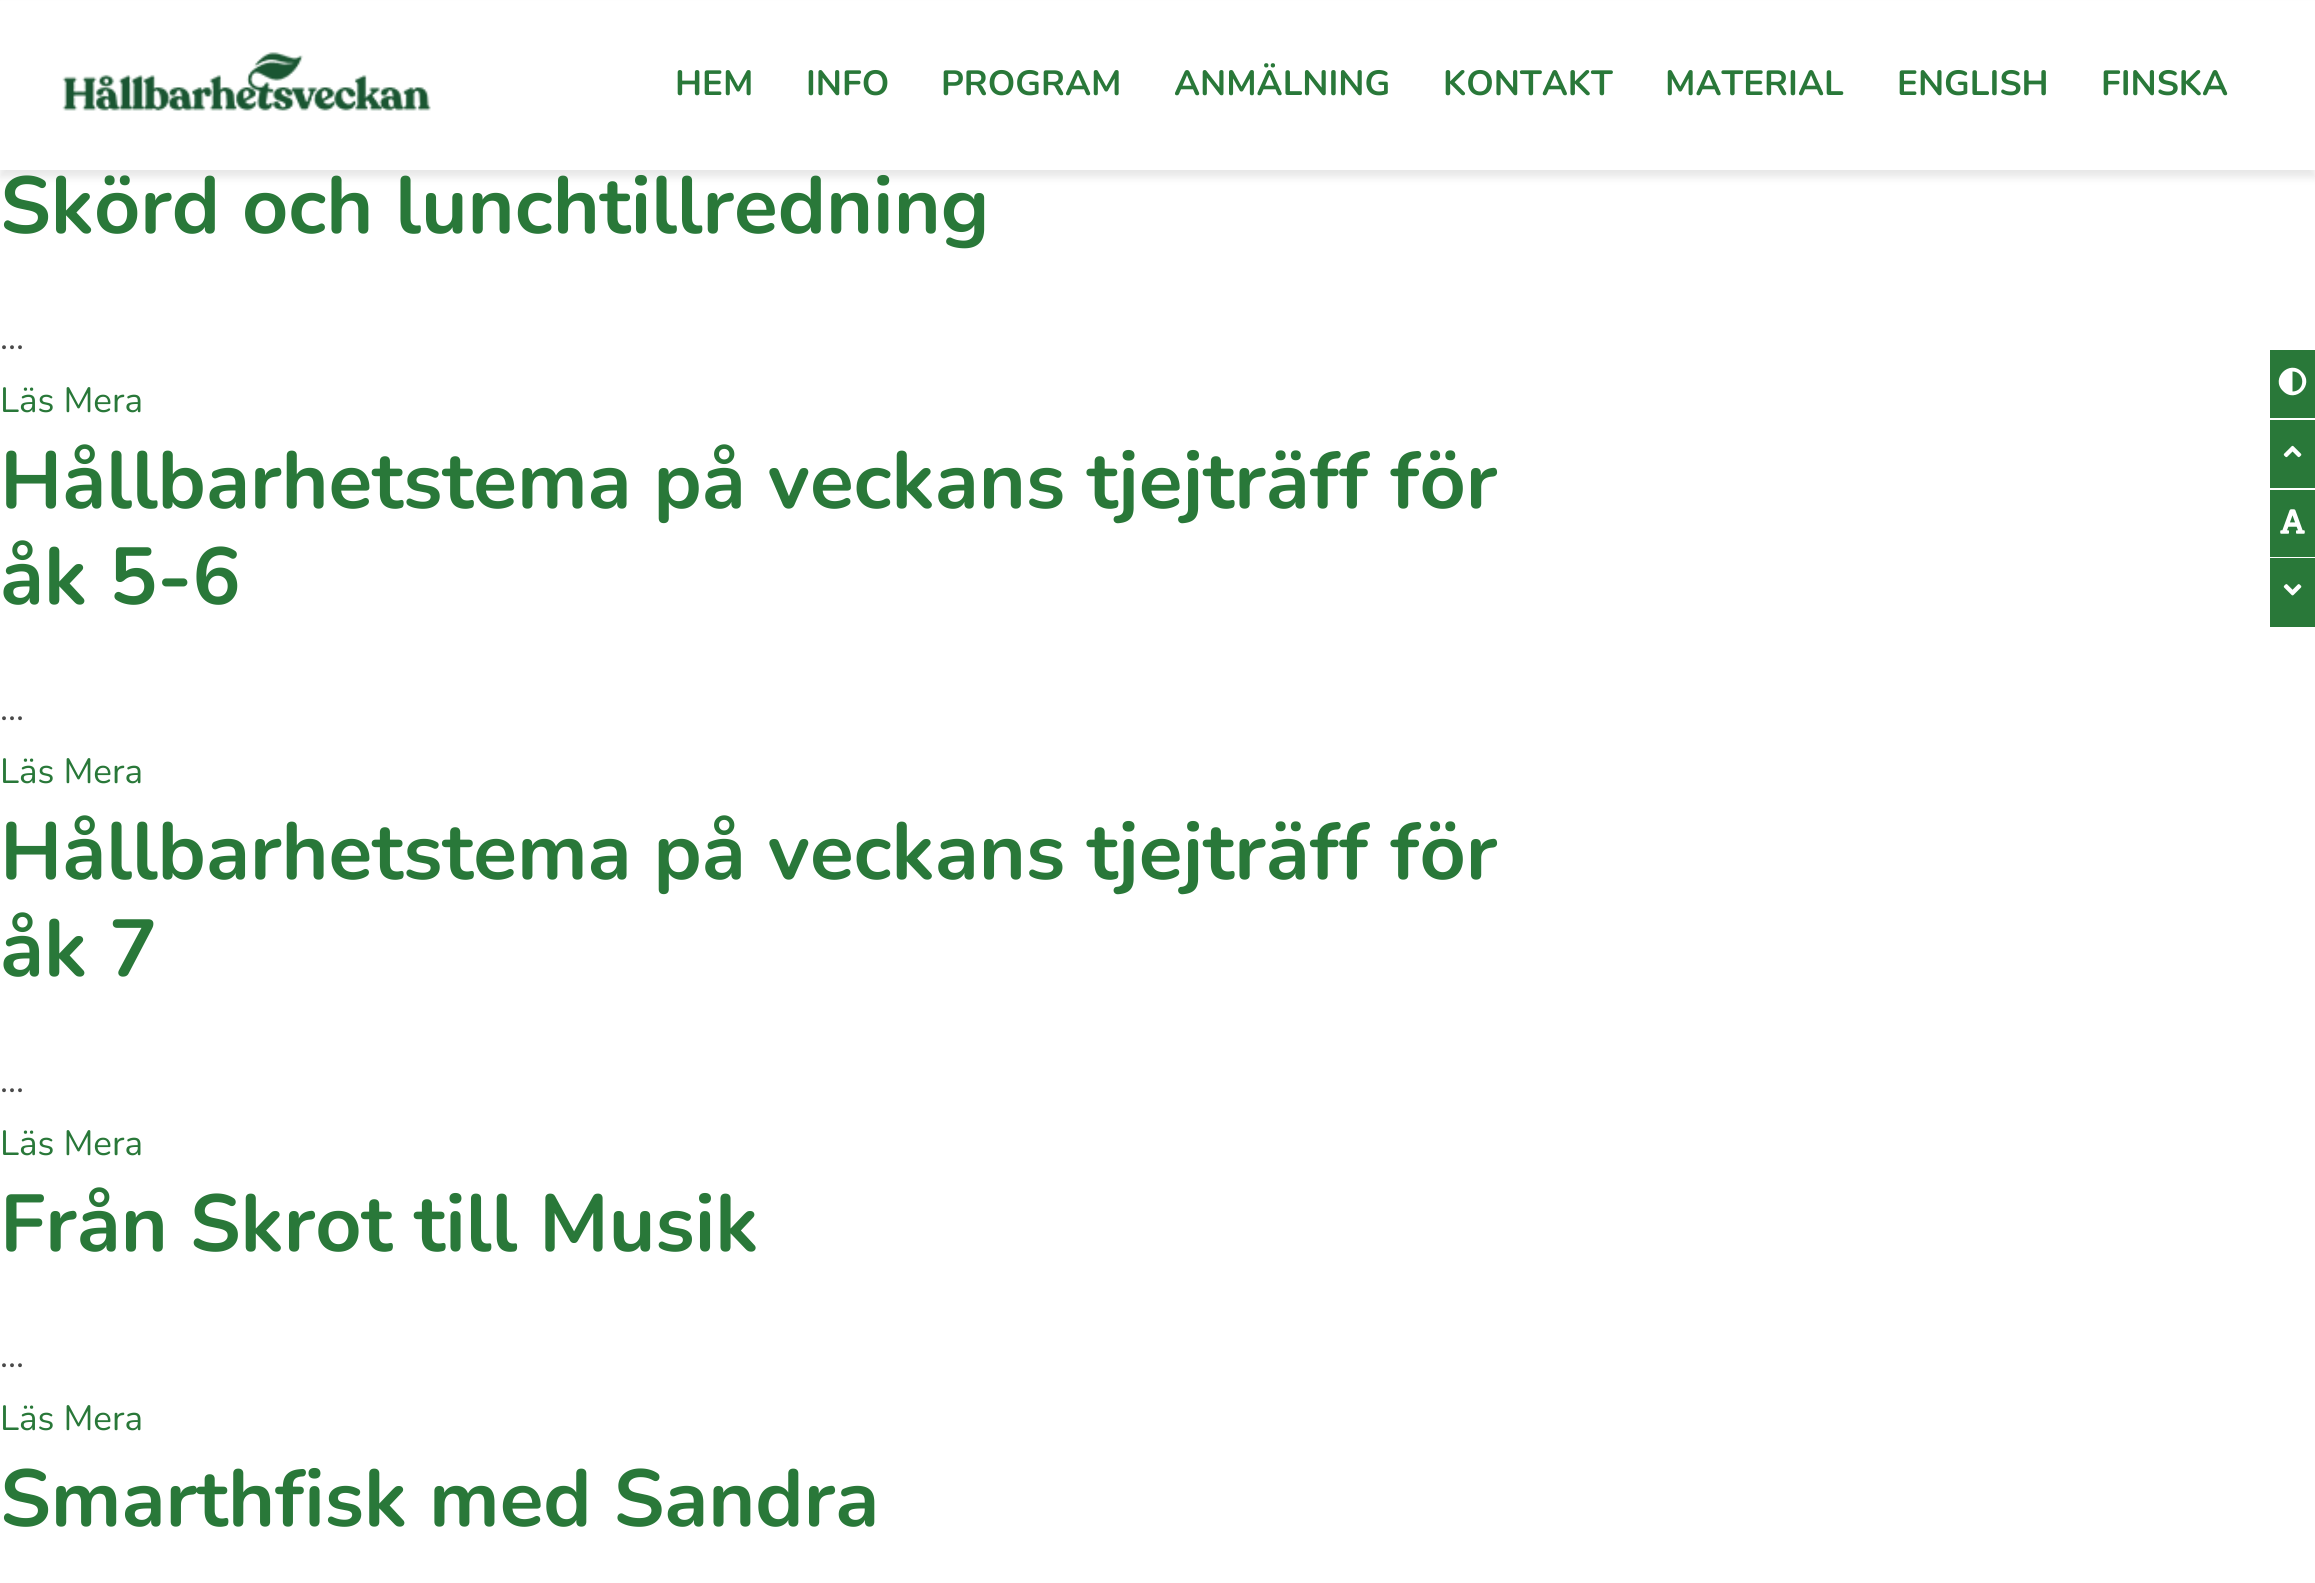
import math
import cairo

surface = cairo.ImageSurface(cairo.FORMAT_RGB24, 2315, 1583)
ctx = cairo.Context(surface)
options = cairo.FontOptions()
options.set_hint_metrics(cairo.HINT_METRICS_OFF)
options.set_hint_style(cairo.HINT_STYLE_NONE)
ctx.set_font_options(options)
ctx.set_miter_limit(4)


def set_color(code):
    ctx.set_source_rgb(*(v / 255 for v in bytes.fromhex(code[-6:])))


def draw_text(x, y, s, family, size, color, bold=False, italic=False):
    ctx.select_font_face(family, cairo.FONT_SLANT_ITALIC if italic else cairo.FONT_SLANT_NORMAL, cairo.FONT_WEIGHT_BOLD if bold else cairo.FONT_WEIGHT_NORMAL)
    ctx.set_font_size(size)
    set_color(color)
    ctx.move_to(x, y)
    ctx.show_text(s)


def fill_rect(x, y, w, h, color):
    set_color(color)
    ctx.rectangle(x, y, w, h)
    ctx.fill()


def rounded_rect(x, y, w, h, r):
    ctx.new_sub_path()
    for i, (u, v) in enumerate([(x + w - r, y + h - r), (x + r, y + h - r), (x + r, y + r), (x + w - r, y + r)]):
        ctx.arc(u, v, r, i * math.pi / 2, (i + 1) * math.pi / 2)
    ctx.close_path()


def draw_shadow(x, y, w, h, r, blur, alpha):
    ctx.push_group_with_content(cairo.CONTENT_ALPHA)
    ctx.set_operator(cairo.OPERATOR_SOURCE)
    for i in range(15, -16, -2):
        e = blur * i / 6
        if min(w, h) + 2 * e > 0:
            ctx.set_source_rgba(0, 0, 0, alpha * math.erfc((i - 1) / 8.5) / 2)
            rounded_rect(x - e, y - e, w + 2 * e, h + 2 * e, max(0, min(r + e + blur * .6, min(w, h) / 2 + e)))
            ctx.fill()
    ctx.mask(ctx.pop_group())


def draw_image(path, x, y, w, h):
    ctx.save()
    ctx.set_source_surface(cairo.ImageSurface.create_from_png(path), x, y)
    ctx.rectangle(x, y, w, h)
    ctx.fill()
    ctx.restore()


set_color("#ffffff")
ctx.paint()
set_color("#000000")
draw_shadow(0, 7, 2315, 170, 0, 4.5, 0.1)
fill_rect(0, 1, 2315, 169, "#ffffff")
draw_image("assets/img1.png", 62, 52, 369, 59)
draw_text(675, 95, "HEM", "Nunito", 35, "#297839", bold=True)
draw_text(806, 95, "INFO", "Nunito", 35, "#297839", bold=True)
draw_text(941, 95, "PROGRAM", "Nunito", 35, "#297839", bold=True)
draw_text(1174, 95, "ANMÄLNING", "Nunito", 35, "#297839", bold=True)
draw_text(1443, 95, "KONTAKT", "Nunito", 35, "#297839", bold=True)
draw_text(1665, 95, "MATERIAL", "Nunito", 35, "#297839", bold=True)
draw_text(1897, 95, "ENGLISH", "Nunito", 35, "#297839", bold=True)
draw_text(2101, 95, "FINSKA", "Nunito", 35, "#297839", bold=True)
draw_text(0, 233, "Skörd och lunchtillredning", "Nunito", 80.5, "#297839", bold=True)
draw_text(0, 349, "...", "Nunito", 35, "#4a4a4a")
draw_text(0, 412, "Läs Mera", "Nunito", 35, "#297839")
draw_text(0, 508, "Hållbarhetstema på veckans tjejträff för", "Nunito", 80.5, "#297839", bold=True)
draw_text(0, 604, "åk 5-6", "Nunito", 80.5, "#297839", bold=True)
draw_text(0, 720, "...", "Nunito", 35, "#4a4a4a")
draw_text(0, 783, "Läs Mera", "Nunito", 35, "#297839")
draw_text(0, 879, "Hållbarhetstema på veckans tjejträff för", "Nunito", 80.5, "#297839", bold=True)
draw_text(0, 976, "åk 7", "Nunito", 80.5, "#297839", bold=True)
draw_text(0, 1092, "...", "Nunito", 35, "#4a4a4a")
draw_text(0, 1155, "Läs Mera", "Nunito", 35, "#297839")
draw_text(0, 1251, "Från Skrot till Musik", "Nunito", 80.5, "#297839", bold=True)
draw_text(0, 1367, "...", "Nunito", 35, "#4a4a4a")
draw_text(0, 1430, "Läs Mera", "Nunito", 35, "#297839")
draw_text(0, 1526, "Smarthfisk med Sandra", "Nunito", 80.5, "#297839", bold=True)
fill_rect(2270, 350, 45, 68, "#297839")
set_color("#ffffff")
ctx.new_path()
ctx.move_to(2283, 391)
ctx.curve_to(2270, 378.5, 2289.5, 359, 2302, 372)
ctx.curve_to(2315, 384.5, 2295.5, 404, 2283, 391)
ctx.close_path()
ctx.move_to(2292.5, 391.5)
ctx.curve_to(2305.5, 391.5, 2305.5, 371.5, 2292.5, 371.5)
ctx.close_path()
ctx.fill()
fill_rect(2270, 420, 45, 68, "#297839")
draw_image("assets/img2.png", 2283, 445, 19, 13)
fill_rect(2270, 490, 45, 67, "#297839")
draw_image("assets/img3.png", 2280, 509, 25, 25)
fill_rect(2270, 558, 45, 69, "#297839")
draw_image("assets/img4.png", 2283, 584, 19, 12)
surface.write_to_png("output.png")
